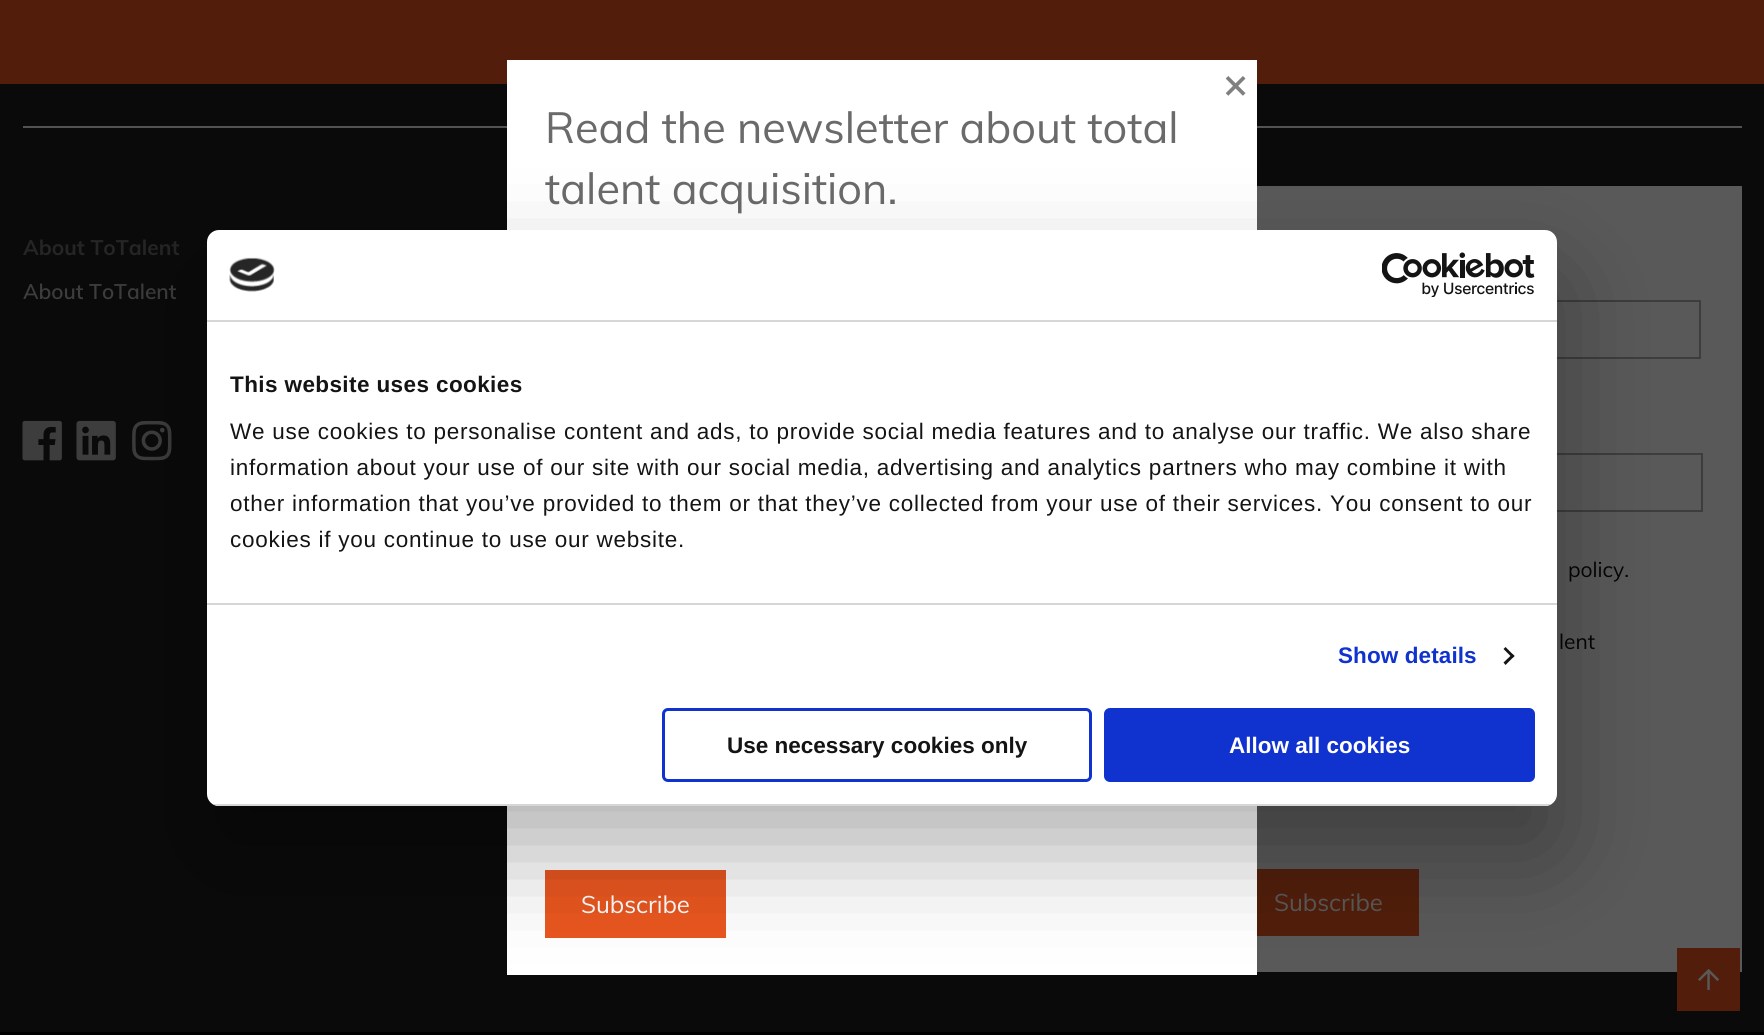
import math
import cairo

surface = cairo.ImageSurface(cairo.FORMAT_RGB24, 1764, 1035)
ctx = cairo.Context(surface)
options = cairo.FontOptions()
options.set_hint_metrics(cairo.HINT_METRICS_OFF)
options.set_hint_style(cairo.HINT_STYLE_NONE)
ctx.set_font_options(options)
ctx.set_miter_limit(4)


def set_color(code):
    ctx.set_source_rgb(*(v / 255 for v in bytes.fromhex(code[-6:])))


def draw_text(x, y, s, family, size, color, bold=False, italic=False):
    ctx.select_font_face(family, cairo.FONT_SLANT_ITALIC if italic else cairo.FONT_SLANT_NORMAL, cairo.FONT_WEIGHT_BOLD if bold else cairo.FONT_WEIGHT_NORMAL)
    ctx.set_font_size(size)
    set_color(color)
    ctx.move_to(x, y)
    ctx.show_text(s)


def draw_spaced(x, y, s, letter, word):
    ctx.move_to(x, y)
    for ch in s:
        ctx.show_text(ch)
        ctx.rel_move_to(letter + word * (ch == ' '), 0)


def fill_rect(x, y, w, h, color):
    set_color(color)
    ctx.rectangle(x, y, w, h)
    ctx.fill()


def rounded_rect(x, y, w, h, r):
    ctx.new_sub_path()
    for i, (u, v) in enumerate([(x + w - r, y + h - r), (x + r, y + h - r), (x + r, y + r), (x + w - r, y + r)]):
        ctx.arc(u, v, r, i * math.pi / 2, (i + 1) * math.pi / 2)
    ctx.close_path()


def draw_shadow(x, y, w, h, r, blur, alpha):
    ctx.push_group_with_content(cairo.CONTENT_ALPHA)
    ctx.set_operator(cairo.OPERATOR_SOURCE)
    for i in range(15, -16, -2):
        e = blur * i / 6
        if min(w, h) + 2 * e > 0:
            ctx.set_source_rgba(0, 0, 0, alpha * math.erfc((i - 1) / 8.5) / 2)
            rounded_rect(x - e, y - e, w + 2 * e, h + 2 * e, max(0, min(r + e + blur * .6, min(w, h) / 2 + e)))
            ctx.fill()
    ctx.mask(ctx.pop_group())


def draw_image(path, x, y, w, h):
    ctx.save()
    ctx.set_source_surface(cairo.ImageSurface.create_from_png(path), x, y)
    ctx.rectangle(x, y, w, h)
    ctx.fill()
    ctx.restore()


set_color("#0a0a0a")
ctx.paint()
fill_rect(0, 0, 1764, 84, "#521e0b")
fill_rect(23, 126, 1719, 2, "#525252")
fill_rect(1257, 186, 485, 786, "#595959")
ctx.rectangle(1239, 454, 463, 57)
set_color("#3d3d3d")
ctx.stroke()
fill_rect(507, 60, 750, 915, "#ffffff")
draw_text(1223, 98, "×", "Muli", 42, "#808080", bold=True)
draw_text(545, 143, "Read the newsletter about total", "Muli", 43.25, "#6a6a6a")
draw_text(545, 204, "talent acquisition.", "Muli", 43.25, "#6a6a6a")
fill_rect(545, 870, 181, 68, "#e95620")
draw_text(581, 913, "Subscribe", "Muli", 24, "#ffffff")
draw_text(23, 255, "About ToTalent", "Muli", 21, "#252525", bold=True)
draw_text(23, 299, "About ToTalent", "Muli SemiBold", 21, "#3d3d3d")
draw_image("assets/img1.png", 22, 420, 40, 41)
draw_image("assets/img2.png", 76, 420, 40, 41)
draw_image("assets/img3.png", 132, 420, 40, 41)
ctx.rectangle(1483, 301, 217, 57)
ctx.stroke()
draw_text(1568, 577, "policy.", "Muli", 21, "#040404")
draw_text(1559, 649, "lent", "Muli", 21, "#040404")
fill_rect(1257, 869, 162, 67, "#521e0b")
draw_text(1274, 911, "Subscribe", "Muli", 24, "#595959")
fill_rect(0, 1032, 1764, 3, "#000000")
fill_rect(1677, 948, 63, 63, "#521e0b")
draw_image("assets/img6.png", 1698, 969, 21, 21)
set_color("#000000")
draw_shadow(207, 278, 1350, 576, 12, 51, 0.3)
set_color("#ffffff")
rounded_rect(207, 230, 1350, 576, 12)
ctx.fill()
fill_rect(207, 320, 1350, 2, "#d6d6d6")
draw_image("assets/img4.png", 229, 257, 46, 35)
draw_image("assets/img5.png", 1382, 252, 153, 45)
fill_rect(207, 603, 1350, 2, "#d6d6d6")
ctx.select_font_face("Liberation Sans", cairo.FONT_SLANT_NORMAL, cairo.FONT_WEIGHT_BOLD)
ctx.set_font_size(22.5)
set_color("#141414")
draw_spaced(230, 392, "This website uses cookies", 0.4, 0)
ctx.select_font_face("Liberation Sans")
draw_spaced(230, 439, "We use cookies to personalise content and ads, to provide social media features and to analyse our traffic. We also share", 0.75, 0)
draw_spaced(230, 475, "information about your use of our site with our social media, advertising and analytics partners who may combine it with", 0.75, 0)
draw_spaced(230, 511, "other information that you’ve provided to them or that they’ve collected from your use of their services. You consent to our", 0.75, 0)
draw_spaced(230, 547, "cookies if you continue to use our website.", 0.75, 0)
ctx.select_font_face("Liberation Sans", cairo.FONT_SLANT_NORMAL, cairo.FONT_WEIGHT_BOLD)
set_color("#1032cf")
draw_spaced(1338, 663, "Show details", 0.1, 0)
set_color("#141414")
ctx.new_path()
ctx.move_to(1505.5, 647)
ctx.line_to(1514.5, 656)
ctx.line_to(1512.5, 658)
ctx.line_to(1503.5, 649)
ctx.close_path()
ctx.fill()
ctx.new_path()
ctx.move_to(1512.5, 654)
ctx.line_to(1514.5, 656)
ctx.line_to(1505.5, 665)
ctx.line_to(1503.5, 662.5)
ctx.close_path()
ctx.fill()
ctx.save()
rounded_rect(207, 230, 1350, 576, 12)
ctx.clip()
fill_rect(207, 804, 1350, 2, "#d6d6d6")
ctx.restore()
rounded_rect(663.5, 709.5, 427, 71, 4.5)
set_color("#1032cf")
ctx.set_line_width(3)
ctx.stroke()
draw_text(727, 753, "Use necessary cookies only", "Liberation Sans", 22.5, "#141414", bold=True)
set_color("#1032cf")
rounded_rect(1105.5, 709.5, 428, 71, 4.5)
ctx.fill_preserve()
ctx.stroke()
draw_text(1229, 753, "Allow all cookies", "Liberation Sans", 22.5, "#ffffff", bold=True)
surface.write_to_png("output.png")
